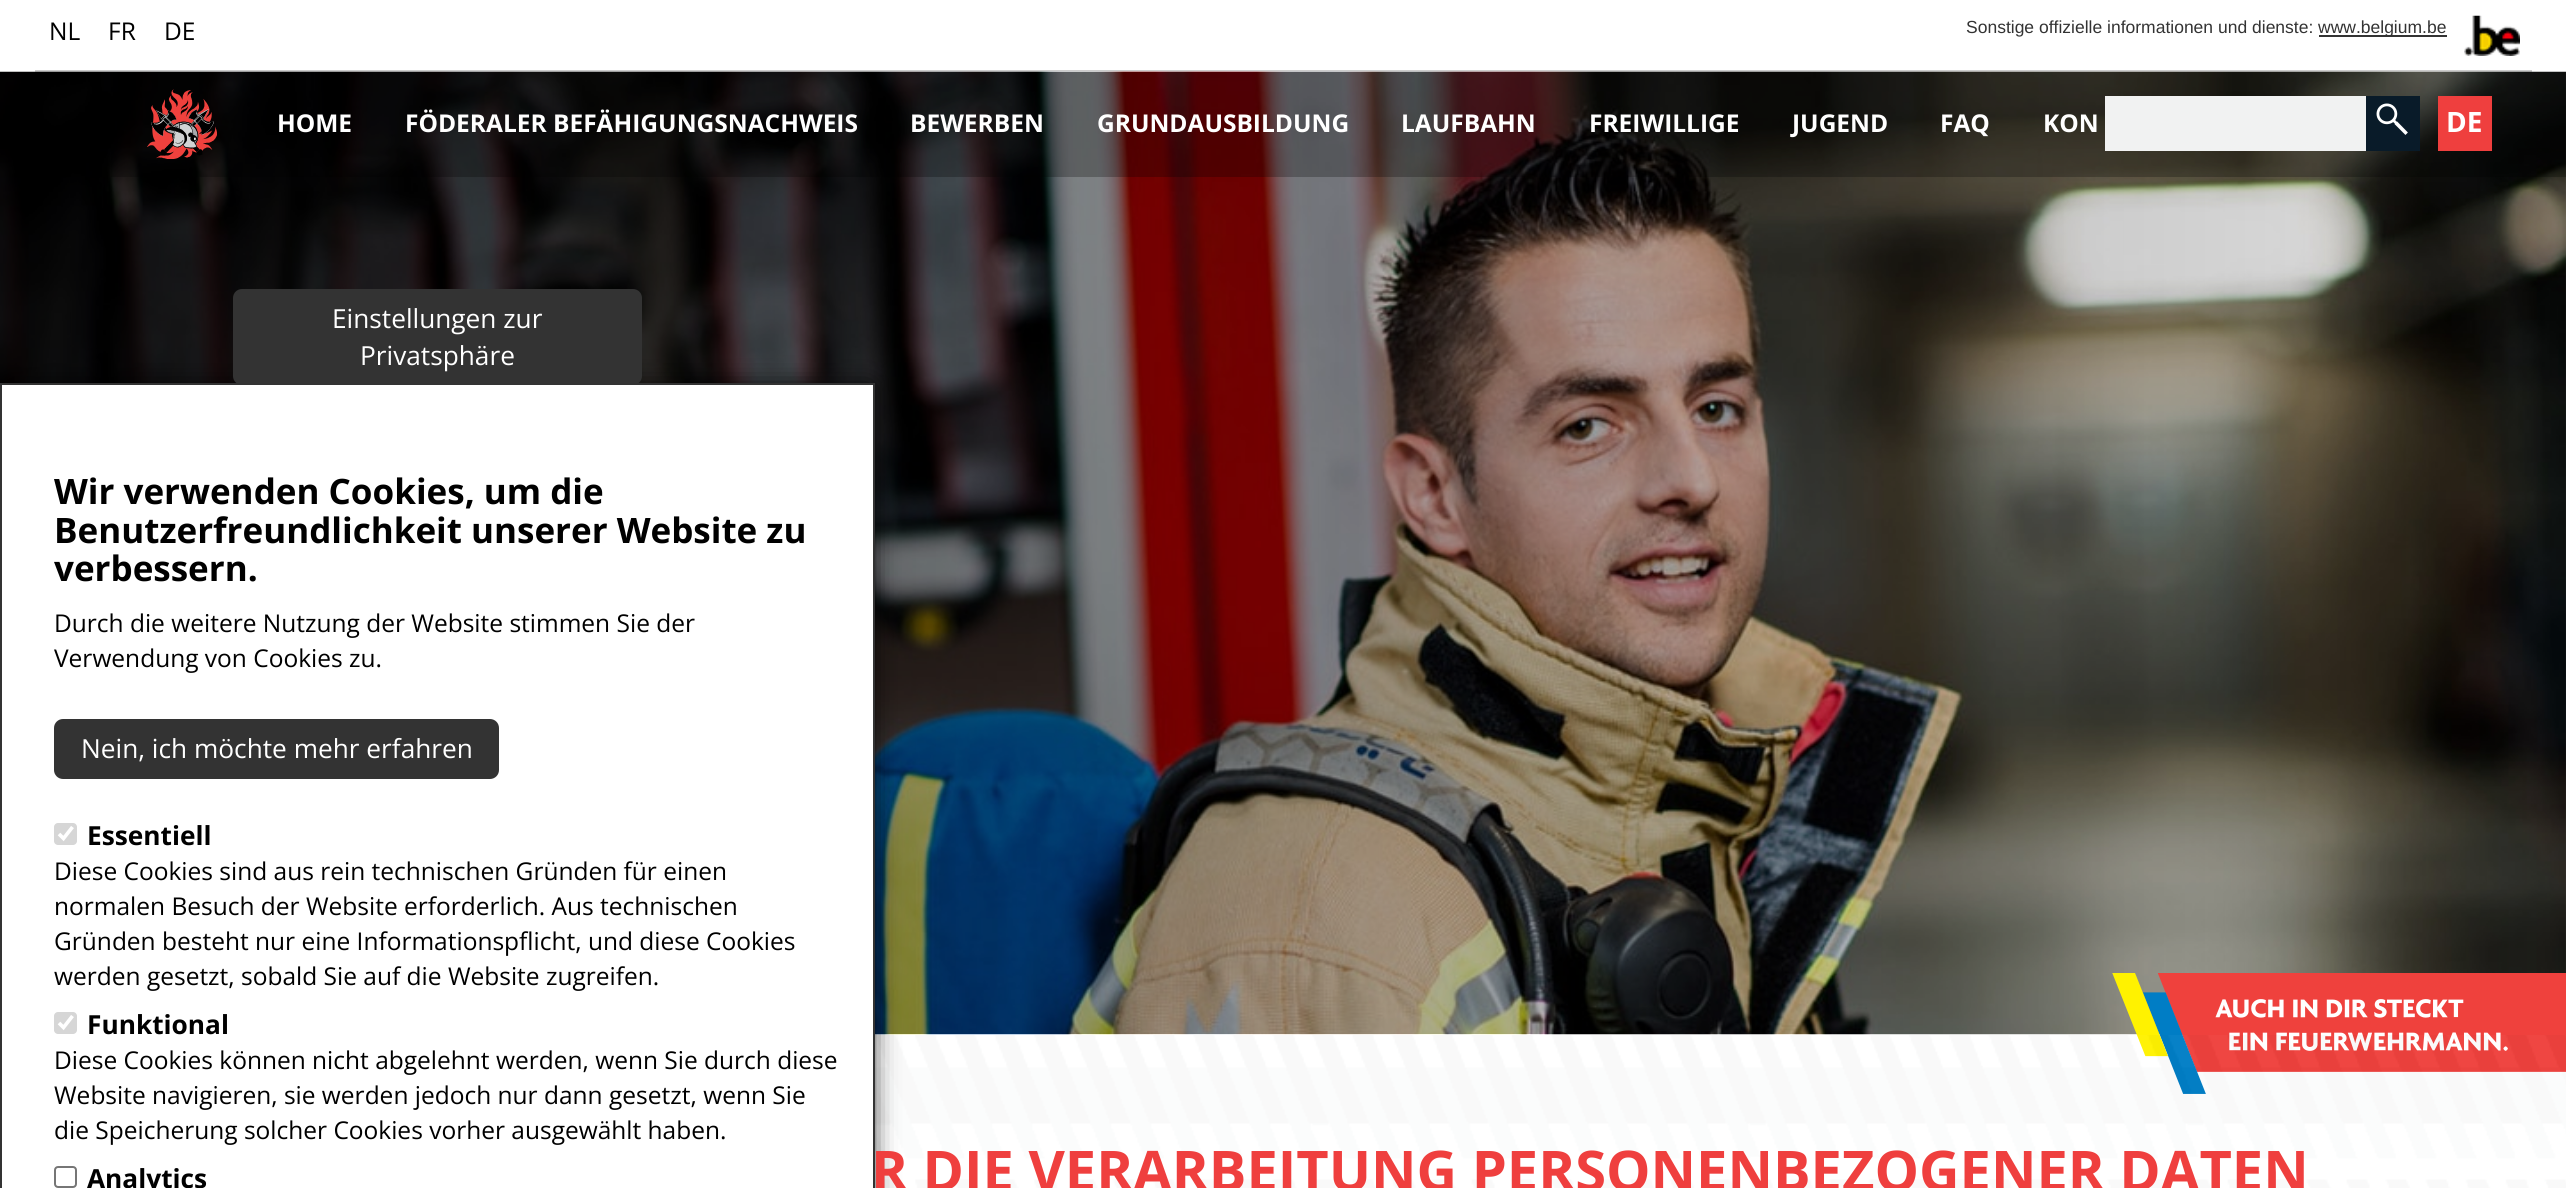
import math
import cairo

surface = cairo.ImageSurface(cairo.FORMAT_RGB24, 2566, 1188)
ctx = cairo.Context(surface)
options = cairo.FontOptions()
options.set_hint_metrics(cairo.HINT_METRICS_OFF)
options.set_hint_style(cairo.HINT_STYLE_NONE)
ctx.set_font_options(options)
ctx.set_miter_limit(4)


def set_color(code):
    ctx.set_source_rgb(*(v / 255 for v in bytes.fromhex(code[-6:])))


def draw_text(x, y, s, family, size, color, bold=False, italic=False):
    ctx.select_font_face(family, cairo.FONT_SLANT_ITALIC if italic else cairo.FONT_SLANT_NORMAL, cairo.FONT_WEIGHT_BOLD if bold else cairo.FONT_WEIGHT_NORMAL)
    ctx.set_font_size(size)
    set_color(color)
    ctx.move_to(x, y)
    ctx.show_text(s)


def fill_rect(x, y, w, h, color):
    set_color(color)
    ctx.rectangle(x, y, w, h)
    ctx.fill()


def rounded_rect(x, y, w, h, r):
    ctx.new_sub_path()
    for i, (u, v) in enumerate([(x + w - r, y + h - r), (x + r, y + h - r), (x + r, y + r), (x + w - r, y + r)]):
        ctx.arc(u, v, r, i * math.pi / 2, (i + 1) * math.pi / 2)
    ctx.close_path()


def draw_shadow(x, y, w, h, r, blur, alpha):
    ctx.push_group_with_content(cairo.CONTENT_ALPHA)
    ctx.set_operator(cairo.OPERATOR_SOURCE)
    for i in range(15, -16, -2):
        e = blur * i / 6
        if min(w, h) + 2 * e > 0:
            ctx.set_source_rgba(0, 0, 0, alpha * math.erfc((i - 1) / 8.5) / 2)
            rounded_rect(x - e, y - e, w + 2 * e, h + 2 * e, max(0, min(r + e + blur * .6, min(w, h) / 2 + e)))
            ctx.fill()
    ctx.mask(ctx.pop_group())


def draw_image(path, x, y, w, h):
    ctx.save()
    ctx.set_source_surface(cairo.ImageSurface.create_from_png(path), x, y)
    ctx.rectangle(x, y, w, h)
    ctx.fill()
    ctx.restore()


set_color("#ffffff")
ctx.paint()
fill_rect(35, 70, 2497, 2, "#cccccc")
draw_text(49, 40, "NL", "Open Sans", 24.5, "#000000")
draw_text(108, 40, "FR", "Open Sans", 24.5, "#000000")
draw_text(164, 40, "DE", "Open Sans", 24.5, "#000000")
draw_text(1966, 33, "Sonstige offizielle informationen und dienste:", "Liberation Sans", 17.5, "#333333")
fill_rect(2319, 35, 128, 2, "#333333")
draw_text(2318, 33, "www.belgium.be", "Liberation Sans", 17.5, "#333333")
draw_image("assets/img1.png", 2464, 15, 56, 41)
draw_image("assets/img2.png", 0, 71, 2566, 964)
ctx.set_source_rgba(0, 0, 0, 0.25)
ctx.rectangle(111, 72, 2455, 105)
ctx.fill()
draw_image("assets/img3.png", 147, 89, 70, 70)
draw_text(277, 132, "HOME", "Open Sans", 24.5, "#ffffff", bold=True)
draw_text(405, 132, "FÖDERALER BEFÄHIGUNGSNACHWEIS", "Open Sans", 24.5, "#ffffff", bold=True)
draw_text(910, 132, "BEWERBEN", "Open Sans", 24.5, "#ffffff", bold=True)
draw_text(1097, 132, "GRUNDAUSBILDUNG", "Open Sans", 24.5, "#ffffff", bold=True)
draw_text(1401, 132, "LAUFBAHN", "Open Sans", 24.5, "#ffffff", bold=True)
draw_text(1589, 132, "FREIWILLIGE", "Open Sans", 24.5, "#ffffff", bold=True)
draw_text(1792, 132, "JUGEND", "Open Sans", 24.5, "#ffffff", bold=True)
draw_text(1940, 132, "FAQ", "Open Sans", 24.5, "#ffffff", bold=True)
draw_text(2043, 132, "KON", "Open Sans", 24.5, "#ffffff", bold=True)
fill_rect(2105, 96, 261, 55, "#f1f2f2")
fill_rect(2366, 96, 54, 55, "#091b29")
draw_image("assets/img4.png", 2376, 103, 32, 32)
fill_rect(2438, 96, 54, 55, "#ef3f3e")
draw_text(2446, 132, "DE", "Open Sans", 28, "#ffffff", bold=True)
draw_image("assets/img5.png", 2112, 973, 454, 121)
draw_image("assets/img6.png", 875, 1035, 1691, 153)
set_color("#000000")
draw_shadow(9, 387, 861, 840, 0, 13, 1)
set_color("#ffffff")
ctx.rectangle(1, 384, 873, 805)
ctx.fill_preserve()
set_color("#333333")
ctx.stroke()
rounded_rect(233, 289, 409, 96, 9)
ctx.fill()
draw_text(332, 328, "Einstellungen zur", "Open Sans", 26.25, "#ffffff")
draw_text(360, 365, "Privatsphäre", "Open Sans", 26.25, "#ffffff")
draw_text(54, 504, "Wir verwenden Cookies, um die", "Open Sans", 35, "#000000", bold=True)
draw_text(54, 543, "Benutzerfreundlichkeit unserer Website zu", "Open Sans", 35, "#000000", bold=True)
draw_text(54, 581, "verbessern.", "Open Sans", 35, "#000000", bold=True)
draw_text(54, 632, "Durch die weitere Nutzung der Website stimmen Sie der", "Open Sans", 24.5, "#000000")
draw_text(54, 667, "Verwendung von Cookies zu.", "Open Sans", 24.5, "#000000")
set_color("#333333")
rounded_rect(54, 719, 445, 60, 9)
ctx.fill()
draw_text(81, 758, "Nein, ich möchte mehr erfahren", "Open Sans", 26.25, "#ffffff")
set_color("#d6d6d6")
rounded_rect(54, 823, 23, 22, 4)
ctx.fill()
ctx.new_path()
ctx.move_to(59, 834)
ctx.line_to(63.5, 838.5)
ctx.line_to(72.5, 827)
set_color("#ffffff")
ctx.set_line_width(3.6)
ctx.stroke()
draw_text(87, 845, "Essentiell", "Open Sans", 26.25, "#000000", bold=True)
draw_text(54, 880, "Diese Cookies sind aus rein technischen Gründen für einen", "Open Sans", 24.5, "#000000")
draw_text(54, 915, "normalen Besuch der Website erforderlich. Aus technischen", "Open Sans", 24.5, "#000000")
draw_text(54, 950, "Gründen besteht nur eine Informationspflicht, und diese Cookies", "Open Sans", 24.5, "#000000")
draw_text(54, 985, "werden gesetzt, sobald Sie auf die Website zugreifen.", "Open Sans", 24.5, "#000000")
set_color("#d6d6d6")
rounded_rect(54, 1012, 23, 22, 4)
ctx.fill()
ctx.new_path()
ctx.move_to(59, 1023)
ctx.line_to(63.5, 1027.5)
ctx.line_to(72.5, 1016)
set_color("#ffffff")
ctx.stroke()
draw_text(87, 1034, "Funktional", "Open Sans", 26.25, "#000000", bold=True)
draw_text(54, 1069, "Diese Cookies können nicht abgelehnt werden, wenn Sie durch diese", "Open Sans", 24.5, "#000000")
draw_text(54, 1104, "Website navigieren, sie werden jedoch nur dann gesetzt, wenn Sie", "Open Sans", 24.5, "#000000")
draw_text(54, 1139, "die Speicherung solcher Cookies vorher ausgewählt haben.", "Open Sans", 24.5, "#000000")
rounded_rect(55, 1167, 21, 20, 3)
set_color("#767676")
ctx.set_line_width(2)
ctx.stroke()
draw_text(87, 1188, "Analytics", "Open Sans", 26.25, "#000000", bold=True)
draw_text(871, 1191, "R DIE VERARBEITUNG PERSONENBEZOGENER DATEN", "Open Sans", 56, "#ef3f3e", bold=True)
surface.write_to_png("output.png")
